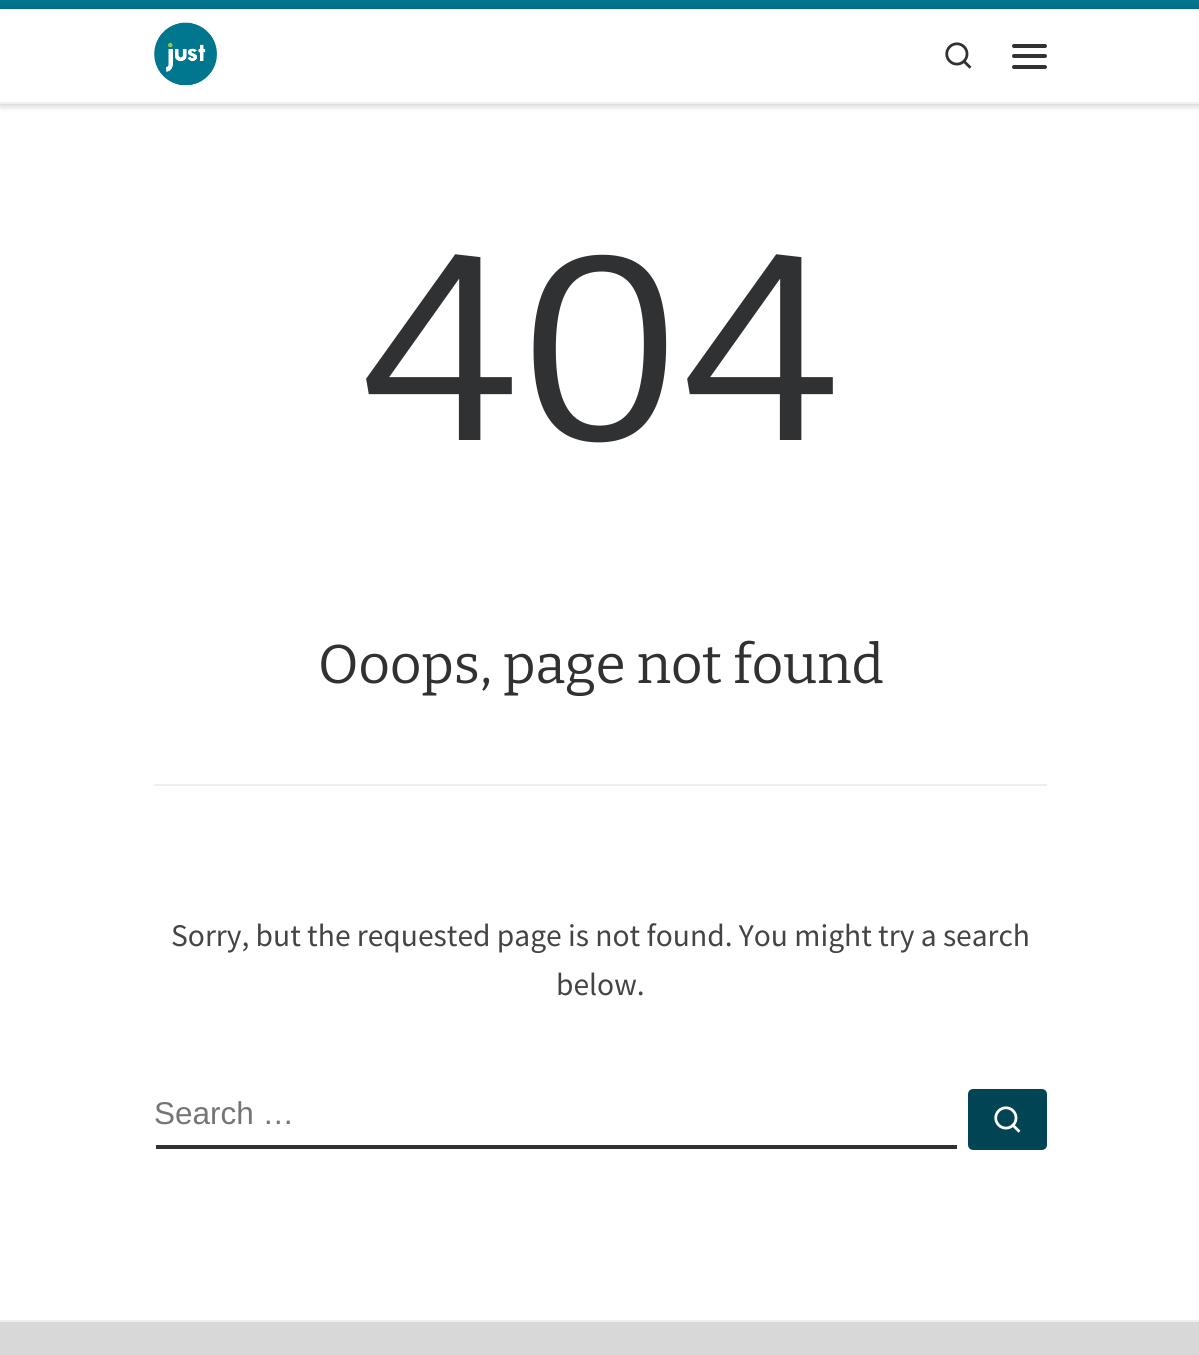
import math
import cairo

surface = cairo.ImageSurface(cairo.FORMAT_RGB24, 1199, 1355)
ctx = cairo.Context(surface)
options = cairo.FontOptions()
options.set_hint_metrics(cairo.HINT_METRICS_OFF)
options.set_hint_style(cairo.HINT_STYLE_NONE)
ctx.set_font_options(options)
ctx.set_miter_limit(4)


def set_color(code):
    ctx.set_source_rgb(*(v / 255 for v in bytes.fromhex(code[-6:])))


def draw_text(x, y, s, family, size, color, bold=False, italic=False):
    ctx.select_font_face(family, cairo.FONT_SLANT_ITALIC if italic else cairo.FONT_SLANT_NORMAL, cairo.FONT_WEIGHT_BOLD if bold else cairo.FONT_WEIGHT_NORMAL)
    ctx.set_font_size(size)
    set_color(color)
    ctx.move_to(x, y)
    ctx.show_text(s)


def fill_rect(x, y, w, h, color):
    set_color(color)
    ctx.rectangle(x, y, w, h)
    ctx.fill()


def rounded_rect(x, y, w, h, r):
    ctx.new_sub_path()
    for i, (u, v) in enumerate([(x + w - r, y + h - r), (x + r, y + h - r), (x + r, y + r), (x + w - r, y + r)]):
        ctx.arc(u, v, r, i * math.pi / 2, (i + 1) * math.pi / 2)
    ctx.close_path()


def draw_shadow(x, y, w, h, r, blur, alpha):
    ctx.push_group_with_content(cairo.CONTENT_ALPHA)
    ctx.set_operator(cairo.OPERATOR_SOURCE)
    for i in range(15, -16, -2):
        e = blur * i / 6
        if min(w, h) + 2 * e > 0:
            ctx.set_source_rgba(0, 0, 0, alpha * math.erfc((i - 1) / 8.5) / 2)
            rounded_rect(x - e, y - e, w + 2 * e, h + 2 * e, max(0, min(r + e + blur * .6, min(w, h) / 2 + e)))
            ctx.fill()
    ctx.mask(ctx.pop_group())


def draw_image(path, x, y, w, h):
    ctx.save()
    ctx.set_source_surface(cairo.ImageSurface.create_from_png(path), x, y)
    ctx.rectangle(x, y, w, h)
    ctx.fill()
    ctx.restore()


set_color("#ffffff")
ctx.paint()
ctx.save()
ctx.rectangle(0, 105, 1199, 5)
ctx.clip()
set_color("#666666")
draw_shadow(0, 4, 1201, 105, 0, 2, 0.08)
ctx.restore()
fill_rect(0, 0, 1199, 9, "#027790")
set_color("#efefef")
ctx.new_path()
ctx.move_to(0, 103)
ctx.line_to(0, 105)
ctx.line_to(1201, 105)
ctx.line_to(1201, 11)
ctx.line_to(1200, 11)
ctx.line_to(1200, 103)
ctx.close_path()
ctx.fill()
ctx.save()
ctx.set_fill_rule(cairo.FILL_RULE_EVEN_ODD)
ctx.new_path()
ctx.move_to(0, 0)
ctx.line_to(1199, 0)
ctx.line_to(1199, 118)
ctx.line_to(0, 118)
ctx.close_path()
ctx.move_to(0, 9)
ctx.line_to(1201, 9)
ctx.line_to(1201, 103)
ctx.line_to(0, 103)
ctx.close_path()
ctx.clip()
set_color("#000000")
draw_shadow(0, 9, 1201, 94, 0, 4.5, 0.2)
ctx.restore()
draw_image("assets/img1.png", 154, 22, 63, 64)
draw_image("assets/img2.png", 945, 42, 27, 27)
set_color("#313131")
rounded_rect(1012, 44, 35, 4, 2)
ctx.fill()
rounded_rect(1012, 54, 35, 4, 2)
ctx.fill()
rounded_rect(1012, 65, 35, 4, 2)
ctx.fill()
fill_rect(0, 102, 1199, 2, "#f0f0f0")
draw_text(363, 440, "404", "Bitter Thin", 262, "#303133")
draw_text(318, 683, "Ooops, page not found", "Bitter Thin", 54.5, "#303133")
fill_rect(154, 784, 893, 2, "#eceeef")
draw_text(171, 946, "Sorry, but the requested page is not found. You might try a search", "Source Sans Pro", 31.5, "#444444")
draw_text(556, 995, "below.", "Source Sans Pro", 31.5, "#444444")
fill_rect(156, 1145, 801, 4, "#313131")
draw_text(154, 1124, "Search …", "Liberation Sans", 31.5, "#757575")
set_color("#014554")
rounded_rect(970, 1091, 75, 57, 3)
ctx.fill_preserve()
ctx.set_line_width(4)
ctx.stroke()
draw_image("assets/img3.png", 994, 1106, 27, 27)
fill_rect(0, 1322, 1199, 33, "#d8d8d8")
fill_rect(0, 1320, 1199, 2, "#eceeef")
surface.write_to_png("output.png")
